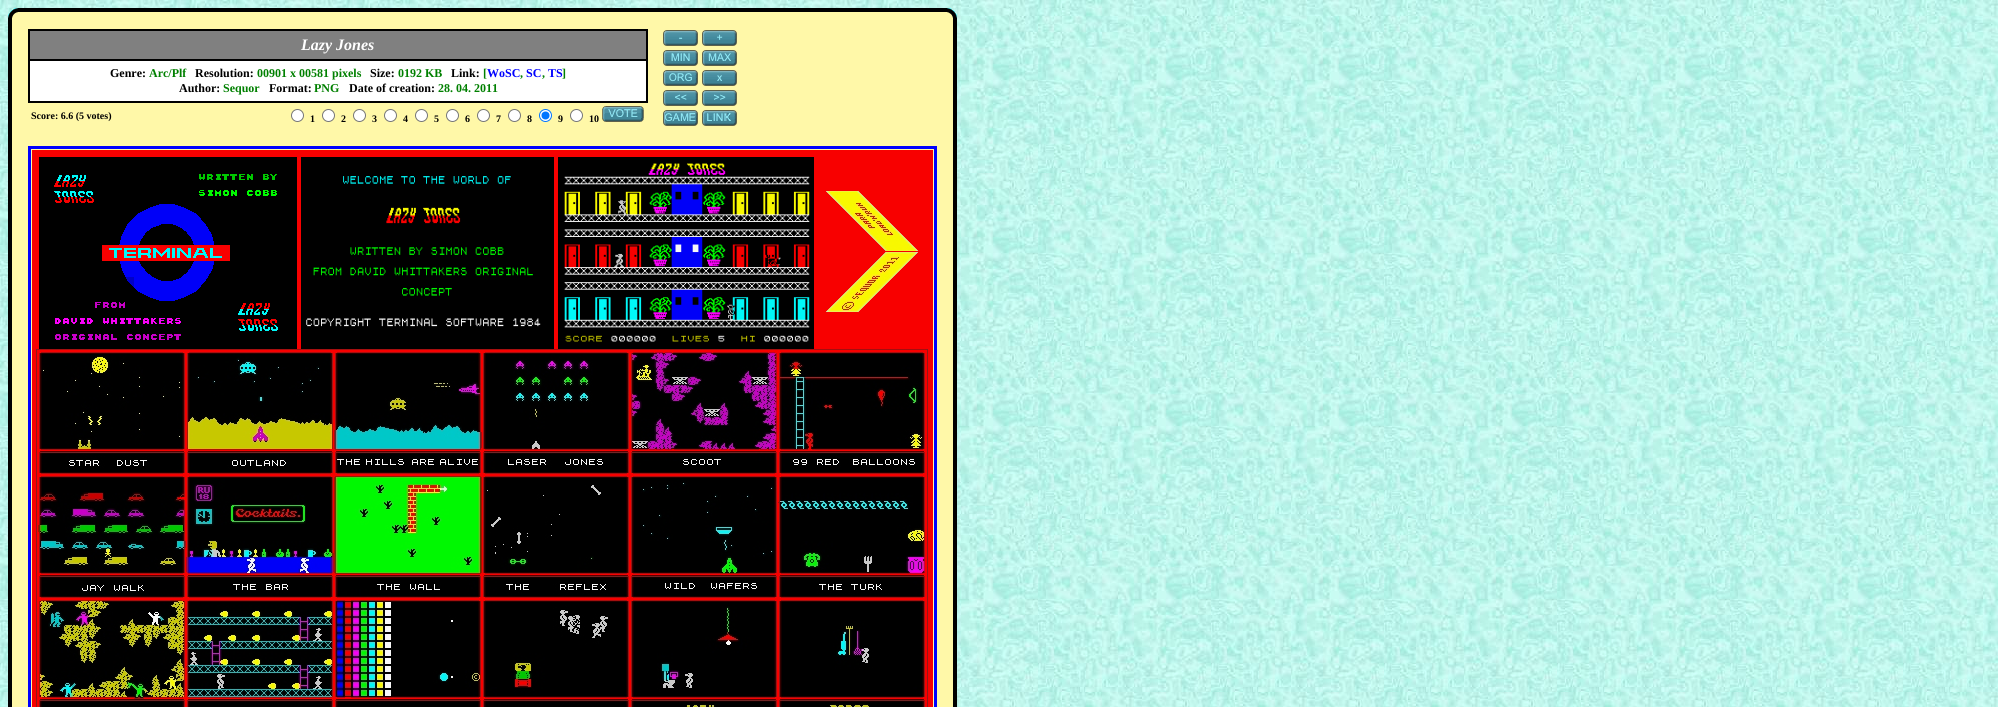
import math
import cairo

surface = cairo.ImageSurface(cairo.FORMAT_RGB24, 1998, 707)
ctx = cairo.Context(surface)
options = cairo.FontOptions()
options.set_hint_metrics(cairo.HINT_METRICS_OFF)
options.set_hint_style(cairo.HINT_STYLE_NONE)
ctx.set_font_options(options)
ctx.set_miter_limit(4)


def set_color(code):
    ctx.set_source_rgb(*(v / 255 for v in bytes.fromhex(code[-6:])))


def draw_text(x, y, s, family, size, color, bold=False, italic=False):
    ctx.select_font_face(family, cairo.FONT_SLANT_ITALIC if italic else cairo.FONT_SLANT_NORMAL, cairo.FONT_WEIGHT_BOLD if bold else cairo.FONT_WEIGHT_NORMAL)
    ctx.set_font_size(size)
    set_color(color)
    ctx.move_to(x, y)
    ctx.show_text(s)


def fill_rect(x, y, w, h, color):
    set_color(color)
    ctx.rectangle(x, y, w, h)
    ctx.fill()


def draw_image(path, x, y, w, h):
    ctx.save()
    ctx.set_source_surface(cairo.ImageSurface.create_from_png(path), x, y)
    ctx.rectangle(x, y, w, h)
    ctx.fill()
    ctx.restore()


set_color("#ffffff")
ctx.paint()
draw_image("assets/img1.png", 0, 0, 1998, 707)
fill_rect(12, 12, 941, 695, "#fff8a8")
draw_image("assets/img2.png", 8, 8, 6, 6)
draw_image("assets/img3.png", 8, 8, 10, 10)
fill_rect(18, 8, 929, 4, "#000000")
draw_image("assets/img4.png", 951, 8, 6, 6)
draw_image("assets/img5.png", 947, 8, 10, 10)
fill_rect(8, 18, 4, 689, "#000000")
ctx.rectangle(28.5, 29.5, 619, 73)
ctx.set_line_width(1)
ctx.stroke()
set_color("#808080")
ctx.rectangle(29.5, 30.5, 617, 29)
ctx.fill_preserve()
set_color("#000000")
ctx.stroke()
draw_text(301, 50, "Lazy Jones", "Liberation Serif", 16, "#ffffff", bold=True, italic=True)
ctx.rectangle(29.5, 60.5, 617, 41)
ctx.fill_preserve()
set_color("#000000")
ctx.stroke()
draw_text(110, 77, "Genre:", "Liberation Serif", 12, "#000000", bold=True)
draw_text(149, 77, "Arc/Plf", "Liberation Serif", 12, "#008000", bold=True)
draw_text(195, 77, "Resolution:", "Liberation Serif", 12, "#000000", bold=True)
draw_text(257, 77, "00901 x 00581 pixels", "Liberation Serif", 12, "#008000", bold=True)
draw_text(370, 77, "Size:", "Liberation Serif", 12, "#000000", bold=True)
draw_text(398, 77, "0192 KB", "Liberation Serif", 12, "#008000", bold=True)
draw_text(451, 77, "Link:", "Liberation Serif", 12, "#000000", bold=True)
draw_text(483, 77, "[", "Liberation Serif", 12, "#008000", bold=True)
draw_text(487, 77, "WoSC", "Liberation Serif", 12, "#0000ff", bold=True)
draw_text(520, 77, ",", "Liberation Serif", 12, "#008000", bold=True)
draw_text(526, 77, "SC", "Liberation Serif", 12, "#0000ff", bold=True)
draw_text(542, 77, ",", "Liberation Serif", 12, "#008000", bold=True)
draw_text(548, 77, "TS", "Liberation Serif", 12, "#0000ff", bold=True)
draw_text(562, 77, "]", "Liberation Serif", 12, "#008000", bold=True)
draw_text(179, 92, "Author:", "Liberation Serif", 12, "#000000", bold=True)
draw_text(223, 92, "Sequor", "Liberation Serif", 12, "#008000", bold=True)
draw_text(269, 92, "Format:", "Liberation Serif", 12, "#000000", bold=True)
draw_text(314, 92, "PNG", "Liberation Serif", 12, "#008000", bold=True)
draw_text(349, 92, "Date of creation:", "Liberation Serif", 12, "#000000", bold=True)
draw_text(438, 92, "28. 04. 2011", "Liberation Serif", 12, "#008000", bold=True)
draw_text(31, 119, "Score: 6.6 (5 votes)", "Liberation Serif", 10, "#000000", bold=True)
set_color("#ffffff")
ctx.new_path()
ctx.arc(297.5, 115.5, 6, 0, 2 * math.pi)
ctx.fill_preserve()
set_color("#767676")
ctx.stroke()
draw_text(310, 122, "1", "Liberation Serif", 10, "#000000", bold=True)
set_color("#ffffff")
ctx.new_path()
ctx.arc(328.5, 115.5, 6, 0, 2 * math.pi)
ctx.fill_preserve()
set_color("#767676")
ctx.stroke()
draw_text(341, 122, "2", "Liberation Serif", 10, "#000000", bold=True)
set_color("#ffffff")
ctx.new_path()
ctx.arc(359.5, 115.5, 6, 0, 2 * math.pi)
ctx.fill_preserve()
set_color("#767676")
ctx.stroke()
draw_text(372, 122, "3", "Liberation Serif", 10, "#000000", bold=True)
set_color("#ffffff")
ctx.new_path()
ctx.arc(390.5, 115.5, 6, 0, 2 * math.pi)
ctx.fill_preserve()
set_color("#767676")
ctx.stroke()
draw_text(403, 122, "4", "Liberation Serif", 10, "#000000", bold=True)
set_color("#ffffff")
ctx.new_path()
ctx.arc(421.5, 115.5, 6, 0, 2 * math.pi)
ctx.fill_preserve()
set_color("#767676")
ctx.stroke()
draw_text(434, 122, "5", "Liberation Serif", 10, "#000000", bold=True)
set_color("#ffffff")
ctx.new_path()
ctx.arc(452.5, 115.5, 6, 0, 2 * math.pi)
ctx.fill_preserve()
set_color("#767676")
ctx.stroke()
draw_text(465, 122, "6", "Liberation Serif", 10, "#000000", bold=True)
set_color("#ffffff")
ctx.new_path()
ctx.arc(483.5, 115.5, 6, 0, 2 * math.pi)
ctx.fill_preserve()
set_color("#767676")
ctx.stroke()
draw_text(496, 122, "7", "Liberation Serif", 10, "#000000", bold=True)
set_color("#ffffff")
ctx.new_path()
ctx.arc(514.5, 115.5, 6, 0, 2 * math.pi)
ctx.fill_preserve()
set_color("#767676")
ctx.stroke()
draw_text(527, 122, "8", "Liberation Serif", 10, "#000000", bold=True)
set_color("#ffffff")
ctx.new_path()
ctx.arc(545.5, 115.5, 6, 0, 2 * math.pi)
ctx.fill_preserve()
set_color("#0075ff")
ctx.stroke()
ctx.arc(545.5, 115.5, 4, 0, 2 * math.pi)
ctx.fill()
draw_text(558, 122, "9", "Liberation Serif", 10, "#000000", bold=True)
set_color("#ffffff")
ctx.new_path()
ctx.arc(576.5, 115.5, 6, 0, 2 * math.pi)
ctx.fill_preserve()
set_color("#767676")
ctx.stroke()
draw_text(589, 122, "10", "Liberation Serif", 10, "#000000", bold=True)
draw_image("assets/img6.png", 602, 106, 42, 16)
draw_image("assets/img7.png", 663, 30, 35, 16)
draw_image("assets/img8.png", 702, 30, 35, 16)
draw_image("assets/img9.png", 663, 50, 35, 16)
draw_image("assets/img10.png", 702, 50, 35, 16)
draw_image("assets/img11.png", 663, 70, 35, 16)
draw_image("assets/img12.png", 702, 70, 35, 16)
draw_image("assets/img13.png", 663, 90, 35, 16)
draw_image("assets/img14.png", 702, 90, 35, 16)
draw_image("assets/img15.png", 663, 110, 35, 16)
draw_image("assets/img16.png", 702, 110, 35, 16)
ctx.rectangle(29.5, 147.5, 906, 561)
set_color("#0000ff")
ctx.set_line_width(3)
ctx.stroke()
draw_image("assets/img17.png", 32, 150, 901, 557)
fill_rect(953, 18, 4, 689, "#000000")
surface.write_to_png("output.png")
